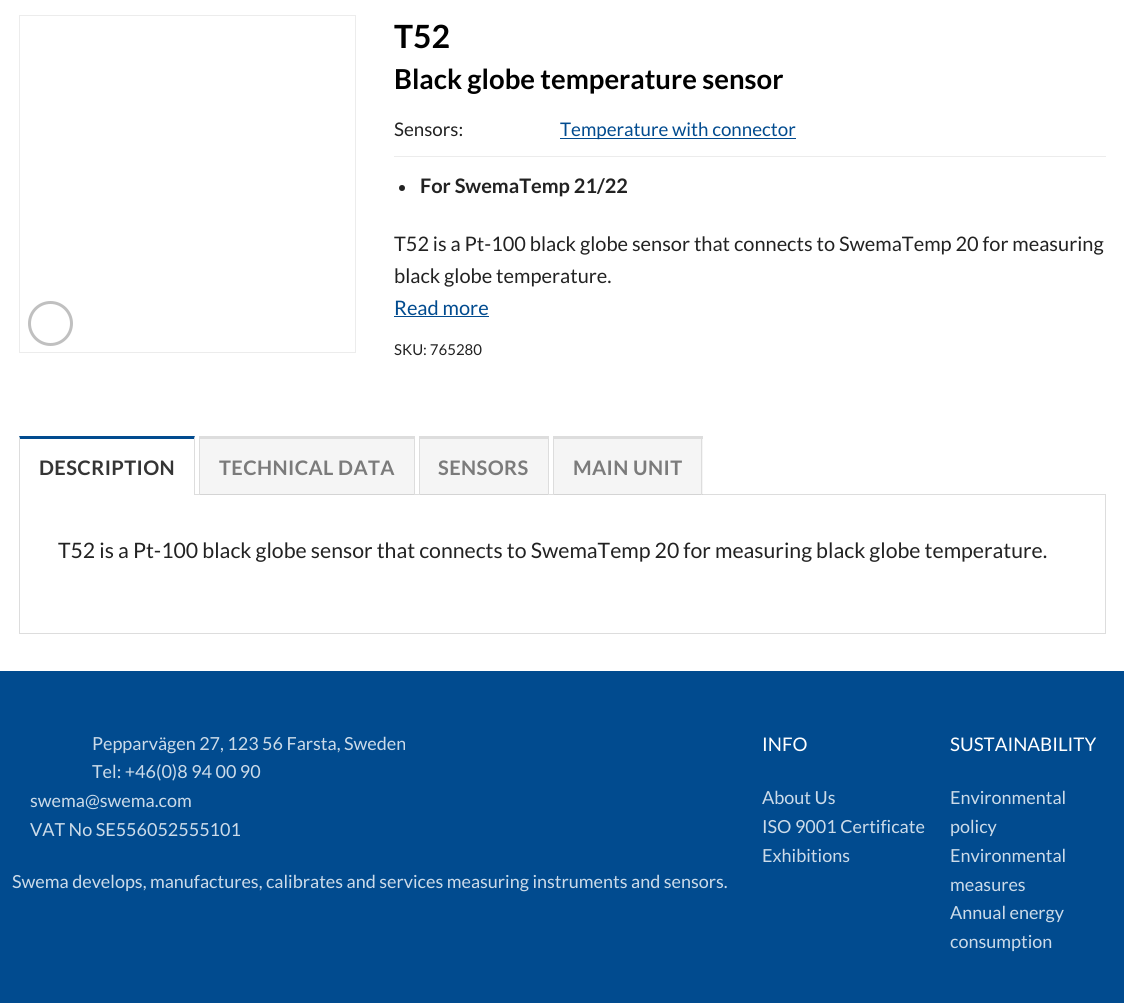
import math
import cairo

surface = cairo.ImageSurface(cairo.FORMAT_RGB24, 1124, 1003)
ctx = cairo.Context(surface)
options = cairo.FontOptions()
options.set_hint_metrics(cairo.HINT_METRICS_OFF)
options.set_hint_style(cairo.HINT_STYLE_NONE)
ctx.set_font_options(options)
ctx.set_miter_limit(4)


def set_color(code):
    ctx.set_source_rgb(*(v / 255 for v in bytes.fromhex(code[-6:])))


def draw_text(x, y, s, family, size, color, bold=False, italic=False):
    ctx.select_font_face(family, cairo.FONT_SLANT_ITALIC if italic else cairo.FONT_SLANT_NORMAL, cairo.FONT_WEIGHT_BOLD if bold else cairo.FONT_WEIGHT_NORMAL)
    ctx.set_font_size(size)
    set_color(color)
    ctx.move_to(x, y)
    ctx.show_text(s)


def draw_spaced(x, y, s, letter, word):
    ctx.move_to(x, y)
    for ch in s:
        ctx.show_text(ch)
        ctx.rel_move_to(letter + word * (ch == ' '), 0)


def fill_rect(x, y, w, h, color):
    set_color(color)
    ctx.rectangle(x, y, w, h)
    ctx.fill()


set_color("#ffffff")
ctx.paint()
ctx.rectangle(19.5, 15.5, 336, 337)
set_color("#ececec")
ctx.set_line_width(1)
ctx.stroke()
ctx.arc(50.5, 323.5, 21, 0, 2 * math.pi)
set_color("#c0c0c0")
ctx.set_line_width(3)
ctx.stroke()
draw_text(394, 48, "T52", "Lato", 32, "#000000", bold=True)
draw_text(394, 89, "Black globe temperature sensor", "Lato", 27.5, "#000000", bold=True)
fill_rect(394, 156, 712, 1, "#ececec")
draw_text(394, 136, "Sensors:", "Lato", 18.75, "#222222")
fill_rect(560, 138, 236, 1, "#014b8f")
draw_text(560, 136, "Temperature with connector", "Lato", 18.75, "#014b8f")
set_color("#222222")
ctx.new_path()
ctx.arc(402, 188, 3, 0, 2 * math.pi)
ctx.fill()
draw_text(420, 193, "For SwemaTemp 21/22", "Lato", 20, "#222222", bold=True)
draw_text(394, 251, "T52 is a Pt-100 black globe sensor that connects to SwemaTemp 20 for measuring", "Lato", 20, "#222222")
draw_text(394, 283, "black globe temperature.", "Lato", 20, "#222222")
draw_text(394, 315, "Read more", "Lato", 20, "#014b8f")
fill_rect(394, 316, 95, 1, "#014b8f")
draw_text(394, 355, "SKU: 765280", "Lato", 15, "#222222")
ctx.rectangle(19.5, 494.5, 1086, 139)
set_color("#dddddd")
ctx.set_line_width(1)
ctx.stroke()
fill_rect(19, 494, 176, 1, "#ffffff")
set_color("#014b8f")
ctx.new_path()
ctx.move_to(19, 436)
ctx.line_to(195, 436)
ctx.line_to(194, 439)
ctx.line_to(20, 439)
ctx.close_path()
ctx.fill()
set_color("#dddddd")
ctx.new_path()
ctx.move_to(195, 436)
ctx.line_to(195, 495)
ctx.line_to(194, 495)
ctx.line_to(194, 439)
ctx.close_path()
ctx.fill()
ctx.new_path()
ctx.move_to(19, 495)
ctx.line_to(19, 436)
ctx.line_to(20, 439)
ctx.line_to(20, 495)
ctx.close_path()
ctx.fill()
ctx.select_font_face("Lato", cairo.FONT_SLANT_NORMAL, cairo.FONT_WEIGHT_BOLD)
ctx.set_font_size(20)
set_color("#353535")
draw_spaced(39, 475, "DESCRIPTION", 0.4, 0)
ctx.set_source_rgba(0, 0, 0, 0.04)
ctx.rectangle(200, 439, 214, 56)
ctx.fill()
fill_rect(199, 436, 216, 3, "#dddddd")
fill_rect(414, 436, 1, 59, "#dddddd")
fill_rect(199, 436, 1, 59, "#dddddd")
set_color("#7b7b7b")
draw_spaced(219, 475, "TECHNICAL DATA", 0.4, 0)
ctx.set_source_rgba(0, 0, 0, 0.04)
ctx.rectangle(420, 439, 128, 56)
ctx.fill()
fill_rect(419, 436, 130, 3, "#dddddd")
fill_rect(548, 436, 1, 59, "#dddddd")
fill_rect(419, 436, 1, 59, "#dddddd")
set_color("#7b7b7b")
draw_spaced(438, 475, "SENSORS", 0.4, 0)
ctx.set_source_rgba(0, 0, 0, 0.04)
ctx.rectangle(554, 439, 149, 56)
ctx.fill()
fill_rect(553, 436, 150, 3, "#dddddd")
fill_rect(701, 436, 1, 59, "#dddddd")
fill_rect(553, 436, 1, 59, "#dddddd")
set_color("#7b7b7b")
draw_spaced(573, 475, "MAIN UNIT", 0.4, 0)
draw_text(58, 558, "T52 is a Pt-100 black globe sensor that connects to SwemaTemp 20 for measuring black globe temperature.", "Lato", 21.25, "#222222")
fill_rect(0, 671, 1124, 332, "#014b8f")
draw_text(92, 750, "Pepparvägen 27, 123 56 Farsta, Sweden", "Lato", 18, "#ccdbe9")
draw_text(92, 778, "Tel: +46(0)8 94 00 90", "Lato", 18, "#ccdbe9")
draw_text(30, 807, "swema@swema.com", "Lato", 18, "#ccdbe9")
draw_text(30, 836, "VAT No SE556052555101", "Lato", 18, "#ccdbe9")
draw_text(12, 888, "Swema develops, manufactures, calibrates and services measuring instruments and sensors.", "Lato", 18, "#ccdbe9")
draw_text(762, 751, "INFO", "Lato", 18.75, "#ffffff")
draw_text(762, 804, "About Us", "Lato", 18, "#ccdbe9")
draw_text(762, 833, "ISO 9001 Certificate", "Lato", 18, "#ccdbe9")
draw_text(762, 862, "Exhibitions", "Lato", 18, "#ccdbe9")
draw_text(950, 751, "SUSTAINABILITY", "Lato", 18.75, "#ffffff")
draw_text(950, 804, "Environmental", "Lato", 18, "#ccdbe9")
draw_text(950, 833, "policy", "Lato", 18, "#ccdbe9")
draw_text(950, 862, "Environmental", "Lato", 18, "#ccdbe9")
draw_text(950, 891, "measures", "Lato", 18, "#ccdbe9")
draw_text(950, 919, "Annual energy", "Lato", 18, "#ccdbe9")
draw_text(950, 948, "consumption", "Lato", 18, "#ccdbe9")
surface.write_to_png("output.png")
